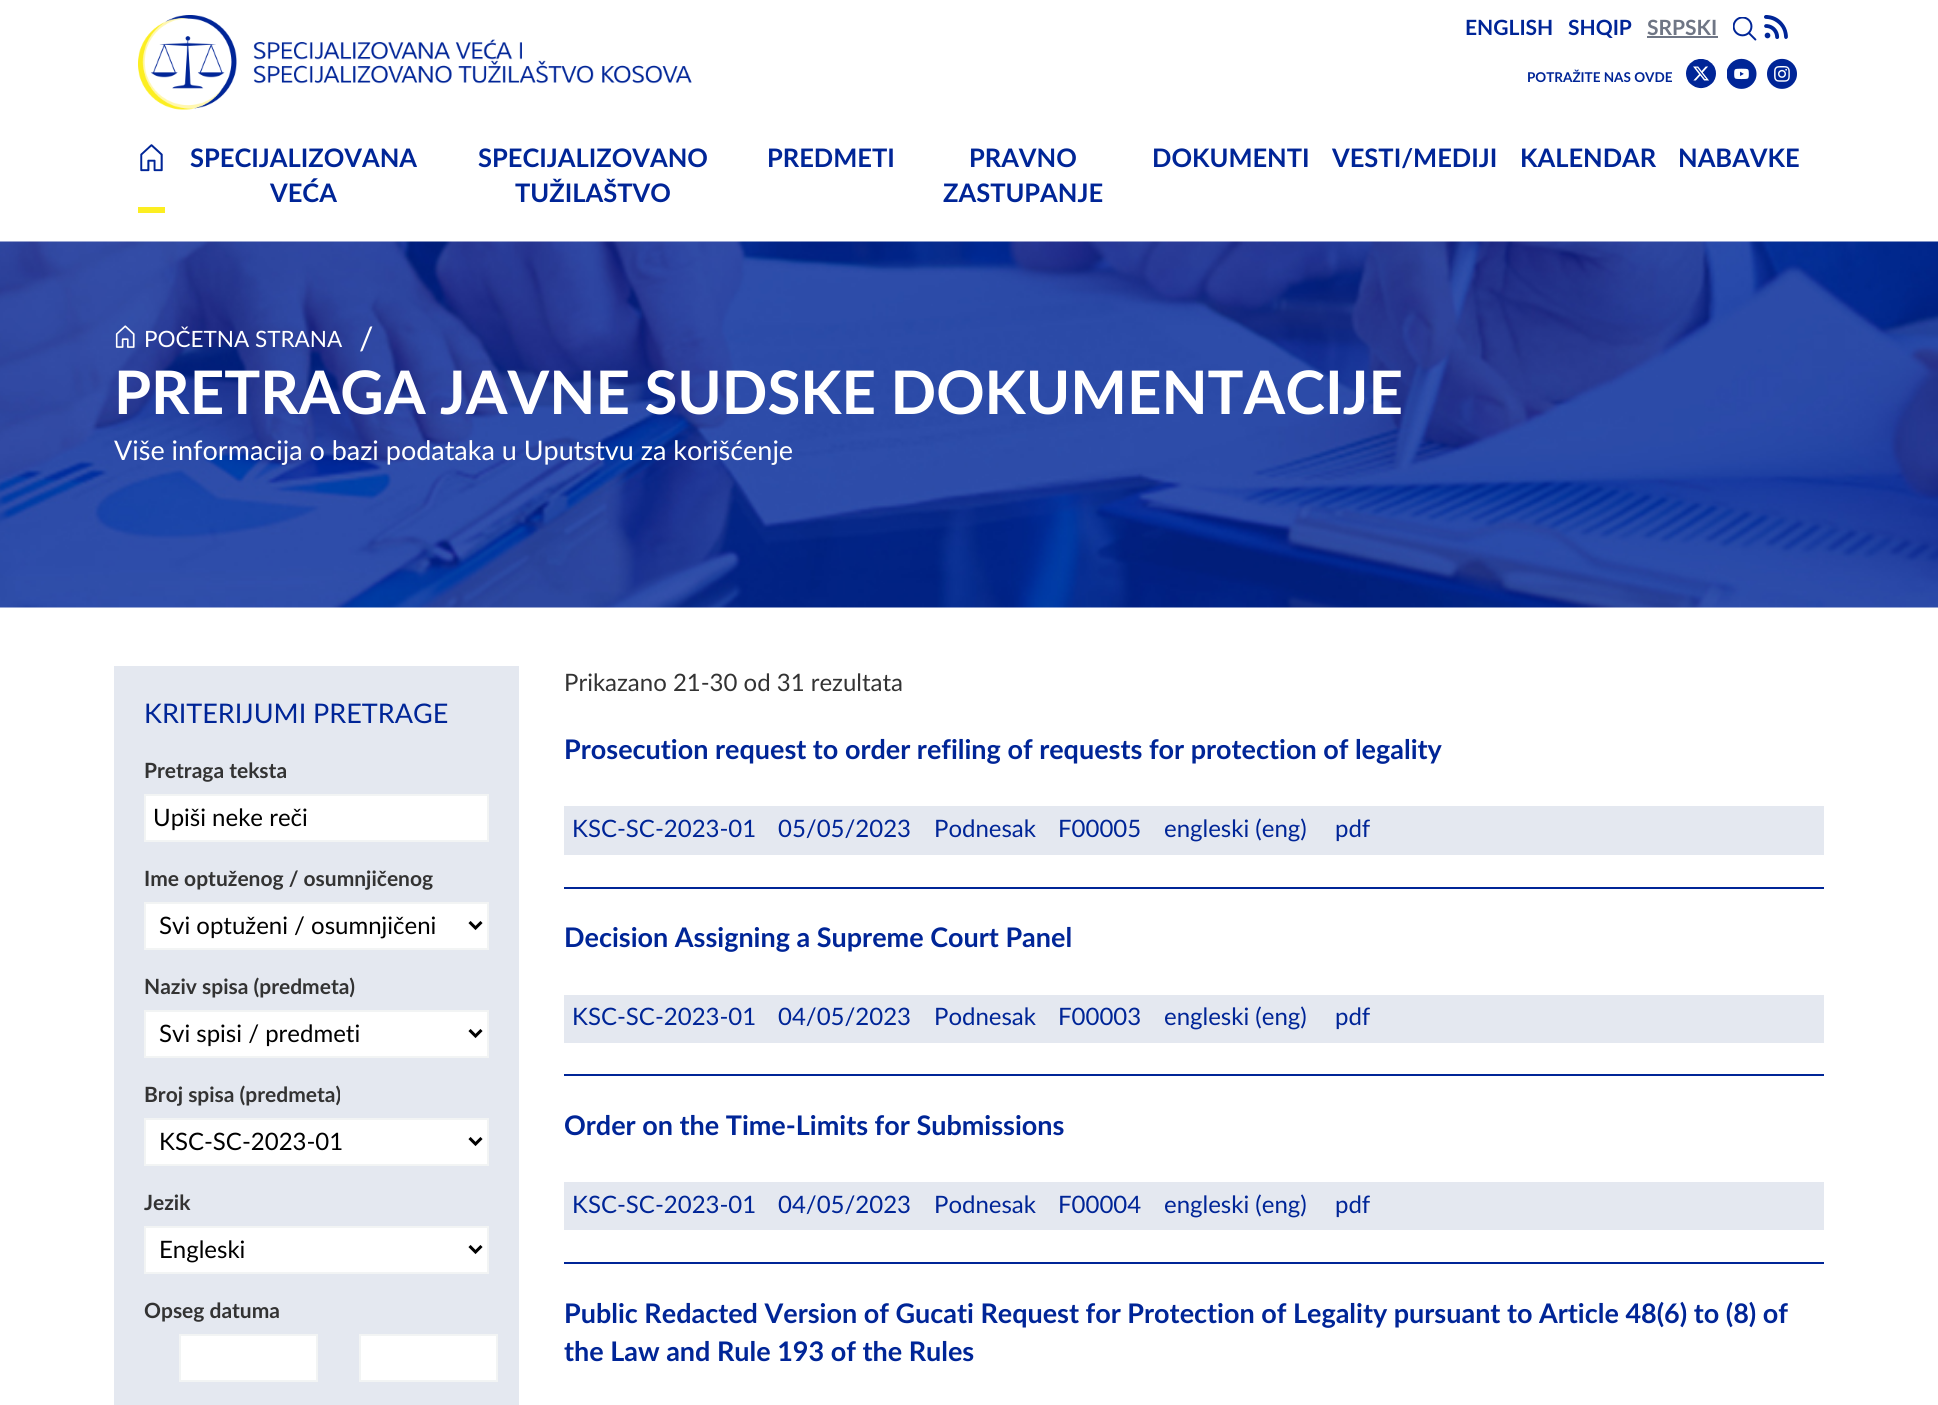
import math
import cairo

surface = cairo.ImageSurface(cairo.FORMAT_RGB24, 1938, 1405)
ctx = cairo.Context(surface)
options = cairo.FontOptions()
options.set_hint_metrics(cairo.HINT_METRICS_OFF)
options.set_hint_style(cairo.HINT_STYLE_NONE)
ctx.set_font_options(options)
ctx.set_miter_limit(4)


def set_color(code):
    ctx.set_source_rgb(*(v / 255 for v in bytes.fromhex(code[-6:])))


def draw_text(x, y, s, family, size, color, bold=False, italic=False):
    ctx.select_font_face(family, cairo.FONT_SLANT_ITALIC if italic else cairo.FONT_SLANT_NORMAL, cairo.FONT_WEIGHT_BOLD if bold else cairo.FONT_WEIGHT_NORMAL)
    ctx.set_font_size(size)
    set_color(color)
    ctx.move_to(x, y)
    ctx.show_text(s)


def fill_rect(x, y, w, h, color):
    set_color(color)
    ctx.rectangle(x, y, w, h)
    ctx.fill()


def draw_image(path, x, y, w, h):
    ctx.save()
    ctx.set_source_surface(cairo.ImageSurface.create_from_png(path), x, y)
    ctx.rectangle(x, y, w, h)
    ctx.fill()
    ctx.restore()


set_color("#ffffff")
ctx.paint()
draw_image("assets/img1.png", 138, 15, 554, 95)
draw_text(1465, 35, "ENGLISH", "Lato", 21, "#002597", bold=True)
draw_text(1568, 35, "SHQIP", "Lato", 21, "#002597", bold=True)
draw_text(1647, 35, "SRPSKI", "Lato", 21, "#6f7685", bold=True)
fill_rect(1647, 36, 71, 2, "#6f7685")
draw_image("assets/img2.png", 1733, 17, 24, 24)
draw_image("assets/img3.png", 1764, 15, 24, 24)
draw_text(1527, 82, "POTRAŽITE NAS OVDE", "Lato", 13.5, "#002597", bold=True)
draw_image("assets/img4.png", 1686, 59, 30, 30)
draw_image("assets/img5.png", 1727, 58, 30, 31)
draw_image("assets/img6.png", 1767, 58, 30, 31)
fill_rect(138, 207, 27, 6, "#fcee21")
draw_image("assets/img7.png", 140, 144, 23, 28)
draw_text(190, 167, "SPECIJALIZOVANA", "Lato", 25.5, "#002597", bold=True)
draw_text(270, 202, "VEĆA", "Lato", 25.5, "#002597", bold=True)
draw_text(478, 167, "SPECIJALIZOVANO", "Lato", 25.5, "#002597", bold=True)
draw_text(515, 202, "TUŽILAŠTVO", "Lato", 25.5, "#002597", bold=True)
draw_text(767, 167, "PREDMETI", "Lato", 25.5, "#002597", bold=True)
draw_text(969, 167, "PRAVNO", "Lato", 25.5, "#002597", bold=True)
draw_text(943, 202, "ZASTUPANJE", "Lato", 25.5, "#002597", bold=True)
draw_text(1152, 167, "DOKUMENTI", "Lato", 25.5, "#002597", bold=True)
draw_text(1332, 167, "VESTI/MEDIJI", "Lato", 25.5, "#002597", bold=True)
draw_text(1520, 167, "KALENDAR", "Lato", 25.5, "#002597", bold=True)
draw_text(1678, 167, "NABAVKE", "Lato", 25.5, "#002597", bold=True)
draw_image("assets/img8.png", 0, 241, 1938, 367)
draw_image("assets/img9.png", 115, 325, 20, 23)
draw_text(144, 347, "POČETNA STRANA", "Lato", 22.5, "#ffffff")
draw_text(359, 350, "/", "Lato", 32, "#ffffff")
draw_text(114, 414, "PRETRAGA JAVNE SUDSKE DOKUMENTACIJE", "Lato", 60, "#ffffff", bold=True)
draw_text(114, 460, "Više informacija o bazi podataka u Uputstvu za korišćenje", "Lato", 27, "#ffffff")
fill_rect(114, 666, 405, 739, "#e4e8f0")
draw_text(144, 723, "KRITERIJUMI PRETRAGE", "Lato", 27, "#002597")
draw_text(144, 778, "Pretraga teksta", "Lato", 21, "#333333", bold=True)
set_color("#ffffff")
ctx.rectangle(145, 795, 343, 46)
ctx.fill_preserve()
set_color("#f2f4f4")
ctx.stroke()
draw_text(153, 826, "Upiši neke reči", "Lato", 24, "#000000")
draw_text(144, 886, "Ime optuženog / osumnjičenog", "Lato", 21, "#333333", bold=True)
set_color("#ffffff")
ctx.rectangle(145, 903, 343, 46)
ctx.fill_preserve()
set_color("#f2f4f4")
ctx.stroke()
ctx.new_path()
ctx.move_to(469.5, 922)
ctx.line_to(475.5, 928)
ctx.line_to(481.5, 922)
set_color("#000000")
ctx.set_line_width(3)
ctx.stroke()
draw_text(159, 934, "Svi optuženi / osumnjičeni", "Lato", 24, "#000000")
draw_text(144, 994, "Naziv spisa (predmeta)", "Lato", 21, "#333333", bold=True)
set_color("#ffffff")
ctx.rectangle(145, 1011, 343, 46)
ctx.fill_preserve()
set_color("#f2f4f4")
ctx.set_line_width(2)
ctx.stroke()
ctx.new_path()
ctx.move_to(469.5, 1030)
ctx.line_to(475.5, 1036)
ctx.line_to(481.5, 1030)
set_color("#000000")
ctx.set_line_width(3)
ctx.stroke()
draw_text(159, 1042, "Svi spisi / predmeti", "Lato", 24, "#000000")
draw_text(144, 1102, "Broj spisa (predmeta)", "Lato", 21, "#333333", bold=True)
set_color("#ffffff")
ctx.rectangle(145, 1119, 343, 46)
ctx.fill_preserve()
set_color("#f2f4f4")
ctx.set_line_width(2)
ctx.stroke()
ctx.new_path()
ctx.move_to(469.5, 1138)
ctx.line_to(475.5, 1144)
ctx.line_to(481.5, 1138)
set_color("#000000")
ctx.set_line_width(3)
ctx.stroke()
draw_text(159, 1150, "KSC-SC-2023-01", "Lato", 24, "#000000")
draw_text(144, 1210, "Jezik", "Lato", 21, "#333333", bold=True)
set_color("#ffffff")
ctx.rectangle(145, 1227, 343, 46)
ctx.fill_preserve()
set_color("#f2f4f4")
ctx.set_line_width(2)
ctx.stroke()
ctx.new_path()
ctx.move_to(469.5, 1246)
ctx.line_to(475.5, 1252)
ctx.line_to(481.5, 1246)
set_color("#000000")
ctx.set_line_width(3)
ctx.stroke()
draw_text(159, 1258, "Engleski", "Lato", 24, "#000000")
draw_text(144, 1318, "Opseg datuma", "Lato", 21, "#333333", bold=True)
set_color("#ffffff")
ctx.rectangle(180, 1335, 137, 46)
ctx.fill_preserve()
set_color("#f2f4f4")
ctx.set_line_width(2)
ctx.stroke()
set_color("#ffffff")
ctx.rectangle(360, 1335, 137, 46)
ctx.fill_preserve()
set_color("#f2f4f4")
ctx.stroke()
draw_text(564, 691, "Prikazano 21-30 od 31 rezultata", "Lato", 24, "#333333")
fill_rect(564, 887, 1260, 2, "#002597")
draw_text(564, 759, "Prosecution request to order refiling of requests for protection of legality", "Lato", 27, "#002597", bold=True)
fill_rect(564, 806, 1260, 49, "#e4e8f0")
draw_text(572, 837, "KSC-SC-2023-01", "Lato", 24, "#002597")
draw_text(778, 837, "05/05/2023", "Lato", 24, "#002597")
draw_text(934, 837, "Podnesak", "Lato", 24, "#002597")
draw_text(1058, 837, "F00005", "Lato", 24, "#002597")
draw_text(1164, 837, "engleski (eng)", "Lato", 24, "#002597")
draw_text(1335, 837, "pdf", "Lato", 24, "#002597")
fill_rect(564, 1074, 1260, 2, "#002597")
draw_text(564, 947, "Decision Assigning a Supreme Court Panel", "Lato", 27, "#002597", bold=True)
fill_rect(564, 995, 1260, 48, "#e4e8f0")
draw_text(572, 1025, "KSC-SC-2023-01", "Lato", 24, "#002597")
draw_text(778, 1025, "04/05/2023", "Lato", 24, "#002597")
draw_text(934, 1025, "Podnesak", "Lato", 24, "#002597")
draw_text(1058, 1025, "F00003", "Lato", 24, "#002597")
draw_text(1164, 1025, "engleski (eng)", "Lato", 24, "#002597")
draw_text(1335, 1025, "pdf", "Lato", 24, "#002597")
fill_rect(564, 1262, 1260, 2, "#002597")
draw_text(564, 1135, "Order on the Time-Limits for Submissions", "Lato", 27, "#002597", bold=True)
fill_rect(564, 1182, 1260, 48, "#e4e8f0")
draw_text(572, 1213, "KSC-SC-2023-01", "Lato", 24, "#002597")
draw_text(778, 1213, "04/05/2023", "Lato", 24, "#002597")
draw_text(934, 1213, "Podnesak", "Lato", 24, "#002597")
draw_text(1058, 1213, "F00004", "Lato", 24, "#002597")
draw_text(1164, 1213, "engleski (eng)", "Lato", 24, "#002597")
draw_text(1335, 1213, "pdf", "Lato", 24, "#002597")
draw_text(564, 1323, "Public Redacted Version of Gucati Request for Protection of Legality pursuant to Article 48(6) to (8) of", "Lato", 27, "#002597", bold=True)
draw_text(564, 1361, "the Law and Rule 193 of the Rules", "Lato", 27, "#002597", bold=True)
surface.write_to_png("output.png")
